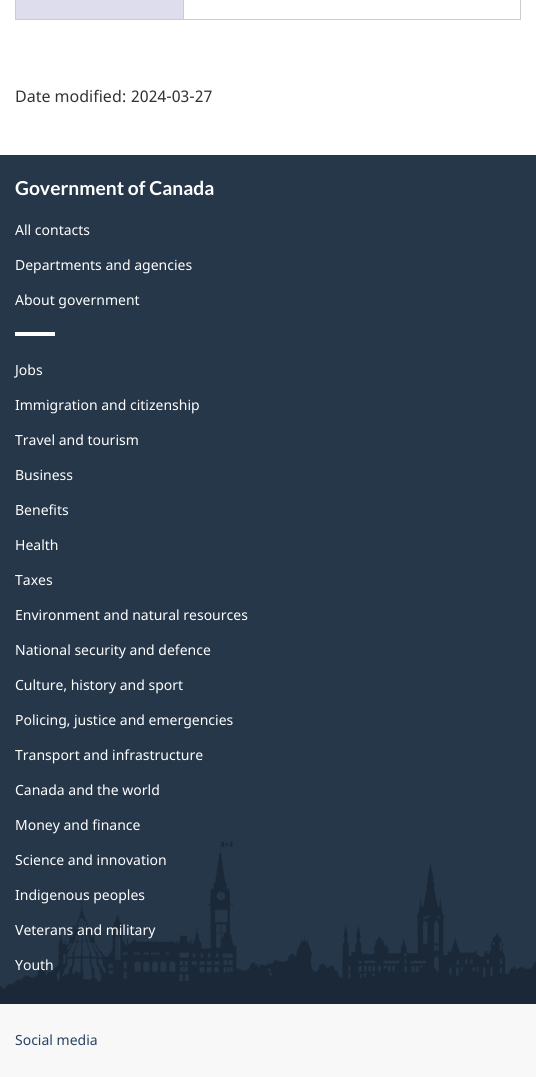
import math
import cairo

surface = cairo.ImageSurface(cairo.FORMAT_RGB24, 536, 1077)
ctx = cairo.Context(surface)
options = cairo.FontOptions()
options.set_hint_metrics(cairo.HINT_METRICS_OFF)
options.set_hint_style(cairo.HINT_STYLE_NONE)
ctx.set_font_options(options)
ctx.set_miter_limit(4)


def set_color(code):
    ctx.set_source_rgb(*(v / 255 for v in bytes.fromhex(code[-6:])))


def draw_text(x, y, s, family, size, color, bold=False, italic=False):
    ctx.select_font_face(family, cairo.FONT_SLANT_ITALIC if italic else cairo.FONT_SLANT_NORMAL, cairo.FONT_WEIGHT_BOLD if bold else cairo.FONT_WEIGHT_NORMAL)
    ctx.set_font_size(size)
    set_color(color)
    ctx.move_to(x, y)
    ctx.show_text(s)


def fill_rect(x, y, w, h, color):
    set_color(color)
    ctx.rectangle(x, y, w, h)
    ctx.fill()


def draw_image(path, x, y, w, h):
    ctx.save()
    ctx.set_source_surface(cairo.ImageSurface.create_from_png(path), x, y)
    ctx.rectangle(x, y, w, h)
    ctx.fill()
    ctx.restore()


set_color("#ffffff")
ctx.paint()
fill_rect(520, 0, 1, 20, "#cccccc")
fill_rect(15, 19, 506, 1, "#cccccc")
fill_rect(15, 0, 1, 20, "#cccccc")
fill_rect(16, 0, 167, 19, "#ddddee")
fill_rect(183, 0, 1, 20, "#cccccc")
draw_text(15, 102, "Date modified:", "Noto Sans", 16, "#333333")
draw_text(131, 102, "2024-03-27", "Noto Sans", 16, "#333333")
fill_rect(0, 155, 536, 834, "#26374a")
draw_image("assets/img1.png", 0, 841, 536, 163)
draw_text(15, 195, "Government of Canada", "Lato", 19.25, "#ffffff", bold=True)
draw_text(15, 235, "All contacts", "Noto Sans", 14, "#ffffff")
draw_text(15, 270, "Departments and agencies", "Noto Sans", 14, "#ffffff")
draw_text(15, 305, "About government", "Noto Sans", 14, "#ffffff")
fill_rect(15, 332, 40, 4, "#ffffff")
draw_text(15, 375, "Jobs", "Noto Sans", 14, "#ffffff")
draw_text(15, 410, "Immigration and citizenship", "Noto Sans", 14, "#ffffff")
draw_text(15, 445, "Travel and tourism", "Noto Sans", 14, "#ffffff")
draw_text(15, 480, "Business", "Noto Sans", 14, "#ffffff")
draw_text(15, 515, "Benefits", "Noto Sans", 14, "#ffffff")
draw_text(15, 550, "Health", "Noto Sans", 14, "#ffffff")
draw_text(15, 585, "Taxes", "Noto Sans", 14, "#ffffff")
draw_text(15, 620, "Environment and natural resources", "Noto Sans", 14, "#ffffff")
draw_text(15, 655, "National security and defence", "Noto Sans", 14, "#ffffff")
draw_text(15, 690, "Culture, history and sport", "Noto Sans", 14, "#ffffff")
draw_text(15, 725, "Policing, justice and emergencies", "Noto Sans", 14, "#ffffff")
draw_text(15, 760, "Transport and infrastructure", "Noto Sans", 14, "#ffffff")
draw_text(15, 795, "Canada and the world", "Noto Sans", 14, "#ffffff")
draw_text(15, 830, "Money and finance", "Noto Sans", 14, "#ffffff")
draw_text(15, 865, "Science and innovation", "Noto Sans", 14, "#ffffff")
draw_text(15, 900, "Indigenous peoples", "Noto Sans", 14, "#ffffff")
draw_text(15, 935, "Veterans and military", "Noto Sans", 14, "#ffffff")
draw_text(15, 970, "Youth", "Noto Sans", 14, "#ffffff")
fill_rect(0, 1004, 536, 73, "#f8f8f8")
draw_text(15, 1045, "Social media", "Noto Sans", 14, "#284162")
surface.write_to_png("output.png")
